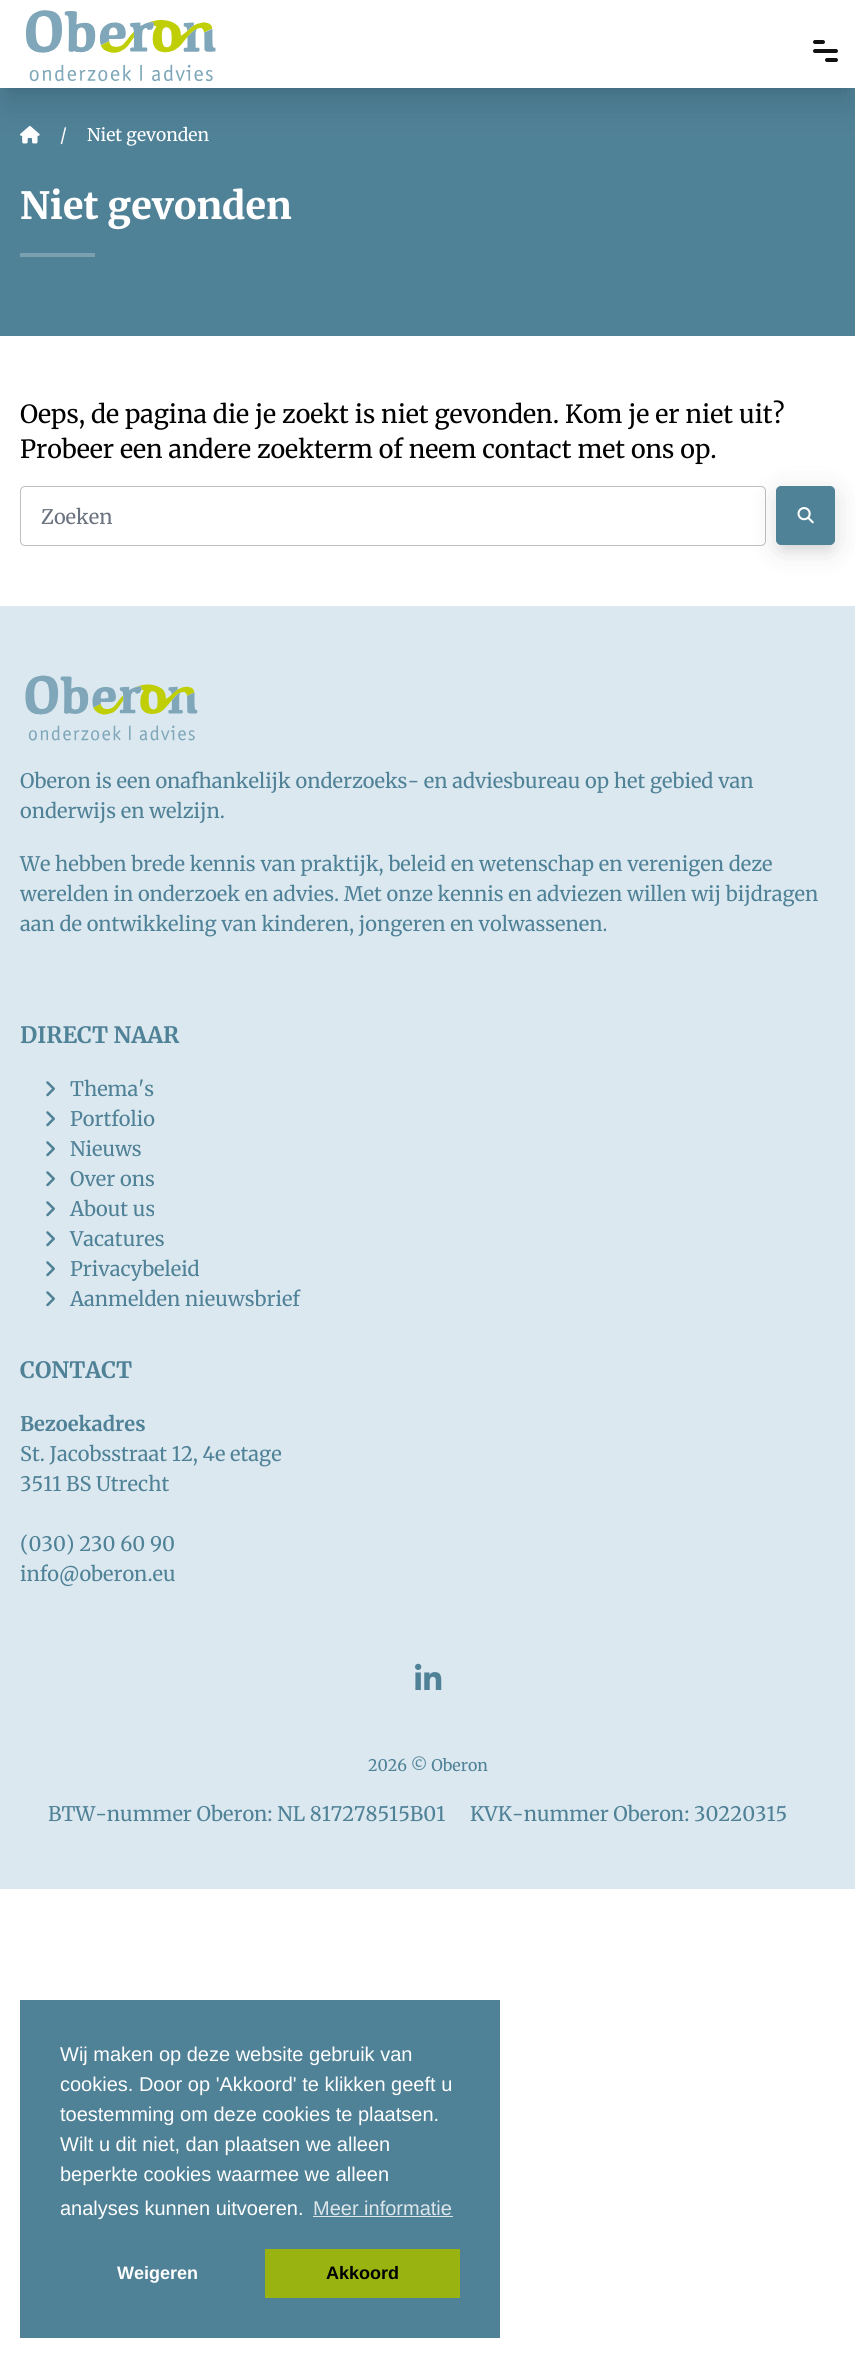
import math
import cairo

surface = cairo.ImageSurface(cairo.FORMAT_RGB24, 855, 2357)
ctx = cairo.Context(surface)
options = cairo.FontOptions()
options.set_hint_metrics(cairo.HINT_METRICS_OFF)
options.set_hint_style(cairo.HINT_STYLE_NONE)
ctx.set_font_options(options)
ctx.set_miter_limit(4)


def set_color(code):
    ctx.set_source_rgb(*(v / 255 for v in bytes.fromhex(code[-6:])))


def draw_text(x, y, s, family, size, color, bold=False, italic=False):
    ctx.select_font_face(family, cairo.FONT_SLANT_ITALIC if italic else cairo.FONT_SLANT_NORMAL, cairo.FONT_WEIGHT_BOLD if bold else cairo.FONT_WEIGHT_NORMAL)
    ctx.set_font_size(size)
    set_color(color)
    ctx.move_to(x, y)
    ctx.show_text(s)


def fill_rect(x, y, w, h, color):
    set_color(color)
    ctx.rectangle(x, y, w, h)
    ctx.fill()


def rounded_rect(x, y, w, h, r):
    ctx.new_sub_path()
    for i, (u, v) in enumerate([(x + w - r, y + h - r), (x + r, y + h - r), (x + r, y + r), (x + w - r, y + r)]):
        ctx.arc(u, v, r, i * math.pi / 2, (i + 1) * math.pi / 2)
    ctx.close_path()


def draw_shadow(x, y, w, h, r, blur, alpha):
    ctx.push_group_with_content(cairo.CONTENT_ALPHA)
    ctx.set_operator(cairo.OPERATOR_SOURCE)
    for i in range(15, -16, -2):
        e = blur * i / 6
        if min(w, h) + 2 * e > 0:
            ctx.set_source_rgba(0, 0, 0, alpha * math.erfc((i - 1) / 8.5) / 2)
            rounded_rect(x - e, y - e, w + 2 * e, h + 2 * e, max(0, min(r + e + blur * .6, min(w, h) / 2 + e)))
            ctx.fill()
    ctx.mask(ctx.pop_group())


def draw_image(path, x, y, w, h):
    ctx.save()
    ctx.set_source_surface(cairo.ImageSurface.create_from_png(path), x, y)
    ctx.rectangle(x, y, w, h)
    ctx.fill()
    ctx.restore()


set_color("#ffffff")
ctx.paint()
fill_rect(0, 88, 855, 248, "#4f8197")
set_color("#000000")
draw_shadow(8, 18, 840, 72, 0, 6, 0.1)
draw_image("assets/img2.png", 20, 126, 20, 18)
draw_shadow(6, 31, 843, 75, 0, 15.5, 0.1)
fill_rect(0, 7, 855, 81, "#ffffff")
draw_image("assets/img1.png", 26, 10, 190, 72)
set_color("#111111")
rounded_rect(813, 40, 12, 4, 2)
ctx.fill()
rounded_rect(813, 49, 25, 4, 2)
ctx.fill()
rounded_rect(825, 58, 13, 4, 2)
ctx.fill()
draw_text(60, 141, "/", "Merriweather", 17.5, "#ffffff")
draw_text(87, 141, "Niet gevonden", "Merriweather", 17.5, "#ffffff")
draw_text(20, 219, "Niet gevonden", "Merriweather ExtraBold", 37.5, "#ffffff")
fill_rect(20, 253, 75, 4, "#7ba1b1")
draw_text(20, 423, "Oeps, de pagina die je zoekt is niet gevonden. Kom je er niet uit?", "Merriweather", 25, "#000000")
draw_text(20, 458, "Probeer een andere zoekterm of neem contact met ons op.", "Merriweather", 25, "#000000")
rounded_rect(20.5, 486.5, 745, 59, 4.5)
set_color("#bfbfbf")
ctx.set_line_width(1)
ctx.stroke()
draw_text(41, 524, "Zoeken", "Merriweather", 20, "#6b7280")
set_color("#000000")
draw_shadow(779, 494, 54, 54, 2.5, 15.5, 0.14)
draw_shadow(783, 503, 46, 46, 0, 6, 0.09)
set_color("#4f8197")
rounded_rect(776.5, 486.5, 58, 58, 4.5)
ctx.fill_preserve()
ctx.stroke()
draw_image("assets/img3.png", 797, 507, 17, 17)
fill_rect(0, 606, 855, 1283, "#dbe8ef")
draw_image("assets/img4.png", 25, 675, 173, 66)
draw_text(20, 788, "Oberon is een onafhankelijk onderzoeks- en adviesbureau op het gebied van", "Merriweather", 20, "#4f8197")
draw_text(20, 818, "onderwijs en welzijn.", "Merriweather", 20, "#4f8197")
draw_text(20, 871, "We hebben brede kennis van praktijk, beleid en wetenschap en verenigen deze", "Merriweather", 20, "#4f8197")
draw_text(20, 901, "werelden in onderzoek en advies. Met onze kennis en adviezen willen wij bijdragen", "Merriweather", 20, "#4f8197")
draw_text(20, 931, "aan de ontwikkeling van kinderen, jongeren en volwassenen.", "Merriweather", 20, "#4f8197")
draw_text(20, 1043, "DIRECT NAAR", "Merriweather", 22.5, "#4f8197", bold=True)
draw_image("assets/img5.png", 46, 1081, 9, 16)
draw_text(70, 1096, "Thema's", "Merriweather", 20, "#4f8197")
draw_image("assets/img5.png", 46, 1111, 9, 16)
draw_text(70, 1126, "Portfolio", "Merriweather", 20, "#4f8197")
draw_image("assets/img5.png", 46, 1141, 9, 16)
draw_text(70, 1156, "Nieuws", "Merriweather", 20, "#4f8197")
draw_image("assets/img5.png", 46, 1171, 9, 16)
draw_text(70, 1186, "Over ons", "Merriweather", 20, "#4f8197")
draw_image("assets/img5.png", 46, 1201, 9, 16)
draw_text(70, 1216, "About us", "Merriweather", 20, "#4f8197")
draw_image("assets/img5.png", 46, 1231, 9, 16)
draw_text(70, 1246, "Vacatures", "Merriweather", 20, "#4f8197")
draw_image("assets/img5.png", 46, 1261, 9, 16)
draw_text(70, 1276, "Privacybeleid", "Merriweather", 20, "#4f8197")
draw_image("assets/img5.png", 46, 1291, 9, 16)
draw_text(70, 1306, "Aanmelden nieuwsbrief", "Merriweather", 20, "#4f8197")
draw_text(20, 1378, "CONTACT", "Merriweather", 22.5, "#4f8197", bold=True)
draw_text(20, 1431, "Bezoekadres", "Merriweather", 20, "#4f8197", bold=True)
draw_text(20, 1461, "St. Jacobsstraat 12, 4e etage", "Merriweather", 20, "#4f8197")
draw_text(20, 1491, "3511 BS Utrecht", "Merriweather", 20, "#4f8197")
draw_text(20, 1551, "(030) 230 60 90", "Merriweather", 20, "#4f8197")
draw_text(20, 1581, "info@oberon.eu", "Merriweather", 20, "#4f8197")
draw_image("assets/img6.png", 415, 1663, 27, 27)
draw_text(368, 1771, "2026 © Oberon", "Merriweather", 16, "#4f8197")
draw_text(48, 1821, "BTW-nummer Oberon: NL 817278515B01", "Merriweather", 20, "#4f8197")
draw_text(470, 1821, "KVK-nummer Oberon: 30220315", "Merriweather", 20, "#4f8197")
fill_rect(20, 2000, 480, 338, "#4f8197")
draw_text(60, 2061, "Wij maken op deze website gebruik van", "Liberation Sans", 20, "#ffffff")
draw_text(60, 2091, "cookies. Door op 'Akkoord' te klikken geeft u", "Liberation Sans", 20, "#ffffff")
draw_text(60, 2121, "toestemming om deze cookies te plaatsen.", "Liberation Sans", 20, "#ffffff")
draw_text(60, 2151, "Wilt u dit niet, dan plaatsen we alleen", "Liberation Sans", 20, "#ffffff")
draw_text(60, 2181, "beperkte cookies waarmee we alleen", "Liberation Sans", 20, "#ffffff")
draw_text(60, 2215, "analyses kunnen uitvoeren.", "Liberation Sans", 20, "#ffffff")
draw_text(313, 2215, "Meer informatie", "Liberation Sans", 20, "#dce6ea")
fill_rect(313, 2216, 140, 1, "#dce6ea")
draw_text(117, 2279, "Weigeren", "Liberation Sans", 18, "#ffffff", bold=True)
fill_rect(265, 2249, 195, 49, "#99b411")
draw_text(326, 2279, "Akkoord", "Liberation Sans", 18, "#000000", bold=True)
surface.write_to_png("output.png")
